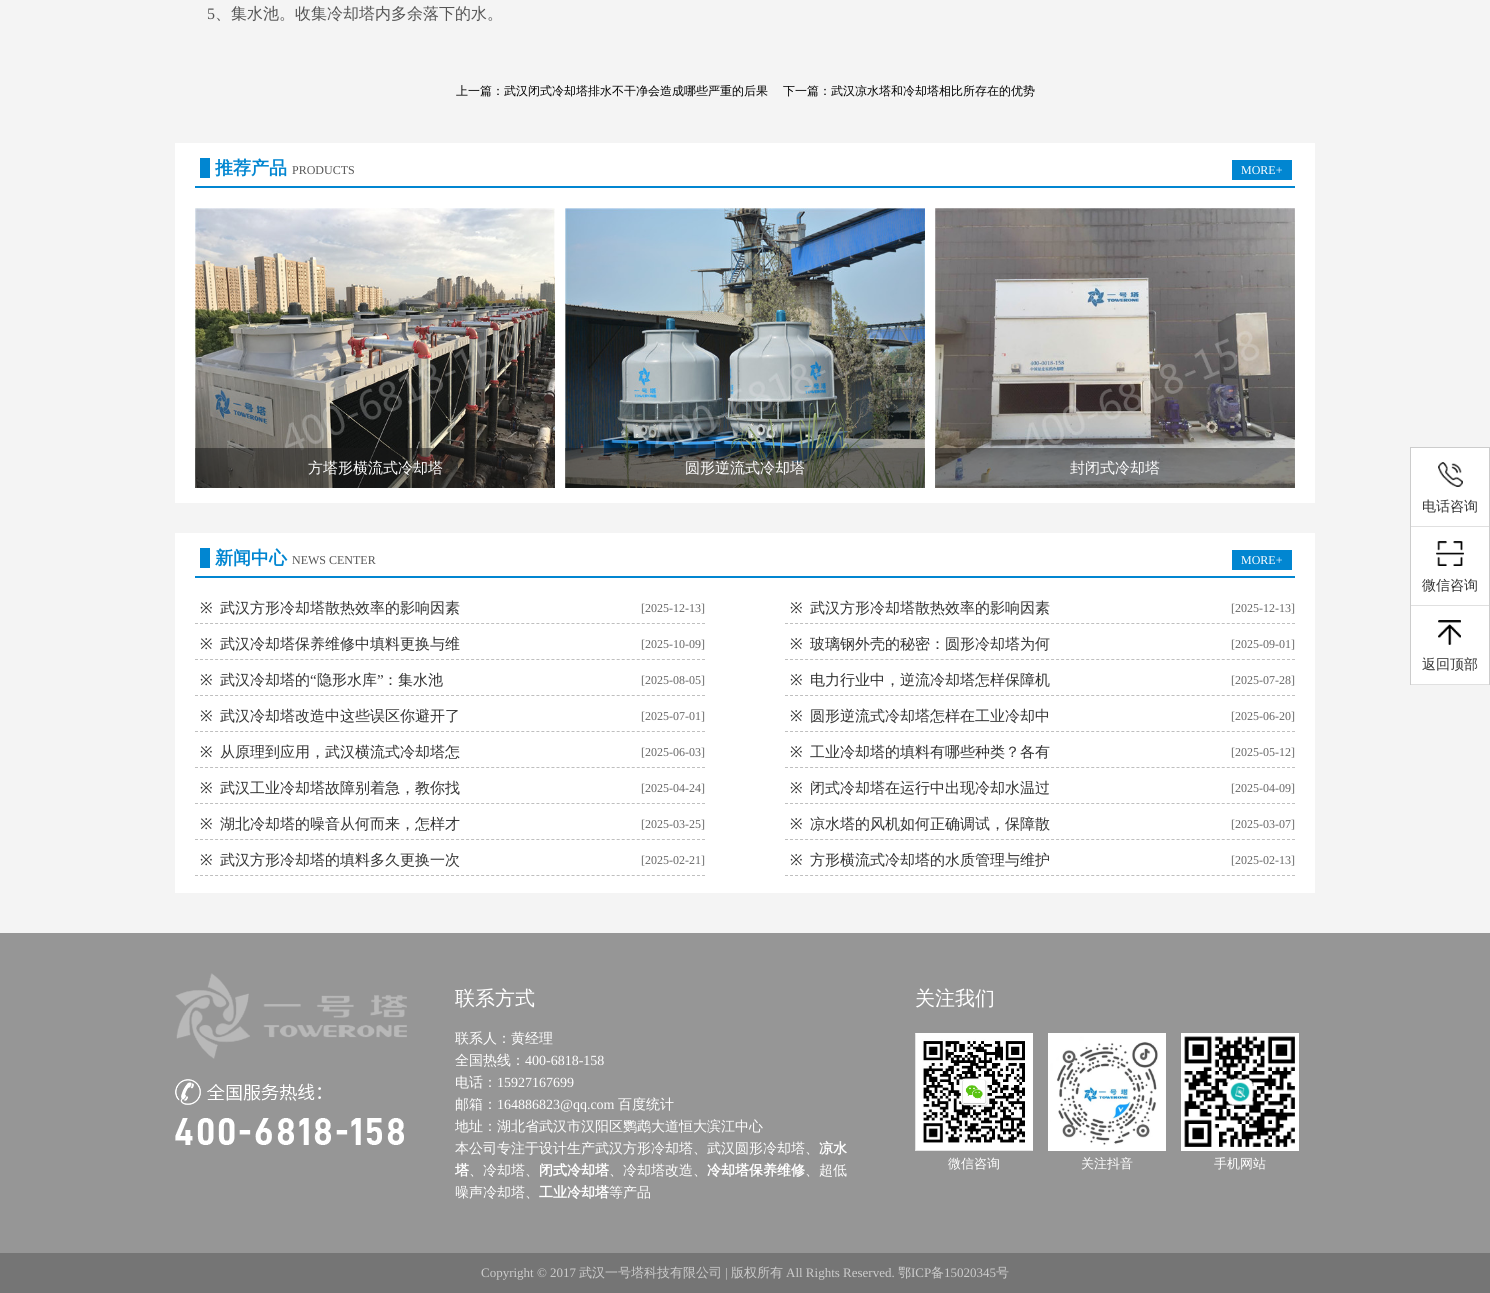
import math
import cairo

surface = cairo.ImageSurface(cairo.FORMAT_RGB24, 1490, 1293)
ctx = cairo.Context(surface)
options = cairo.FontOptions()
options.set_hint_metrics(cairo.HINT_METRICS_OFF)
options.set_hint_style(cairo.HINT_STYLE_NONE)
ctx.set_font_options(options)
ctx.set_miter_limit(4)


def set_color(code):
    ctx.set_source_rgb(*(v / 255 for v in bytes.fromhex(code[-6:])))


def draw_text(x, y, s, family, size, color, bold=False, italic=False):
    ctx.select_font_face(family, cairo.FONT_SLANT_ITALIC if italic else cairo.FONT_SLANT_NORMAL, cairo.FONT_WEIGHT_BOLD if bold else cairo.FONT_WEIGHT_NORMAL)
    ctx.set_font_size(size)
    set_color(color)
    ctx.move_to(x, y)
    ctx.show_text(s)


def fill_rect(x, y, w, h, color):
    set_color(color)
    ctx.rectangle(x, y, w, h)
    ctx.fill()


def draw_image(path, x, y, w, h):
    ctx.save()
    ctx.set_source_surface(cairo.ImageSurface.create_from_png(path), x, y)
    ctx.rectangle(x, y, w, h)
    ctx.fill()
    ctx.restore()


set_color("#f4f4f4")
ctx.paint()
draw_text(207, 19, "5", "Liberation Serif", 16, "#555555")
draw_text(215, 19, "、集水池。收集冷却塔内多余落下的水。", "WenQuanYi Zen Hei Medium", 16, "#555555")
draw_text(456, 95, "上一篇：武汉闭式冷却塔排水不干净会造成哪些严重的后果", "WenQuanYi Zen Hei Medium", 12, "#000000")
draw_text(783, 95, "下一篇：武汉凉水塔和冷却塔相比所存在的优势", "WenQuanYi Zen Hei Medium", 12, "#000000")
fill_rect(175, 143, 1140, 360, "#ffffff")
fill_rect(195, 186, 1100, 2, "#0186d1")
fill_rect(200, 158, 10, 20, "#0186d1")
draw_text(215, 174, "推荐产品", "WenQuanYi Zen Hei", 18, "#0186d1", bold=True)
draw_text(292, 174, "PRODUCTS", "Liberation Serif", 12, "#555555")
fill_rect(1232, 160, 60, 20, "#0186d1")
draw_text(1241, 174, "MORE+", "Liberation Serif", 12, "#ffffff")
draw_image("assets/img1.png", 195, 208, 360, 280)
ctx.set_source_rgba(0.098, 0.098, 0.098, 0.5)
ctx.rectangle(195, 448, 360, 40)
ctx.fill()
draw_text(308, 473, "方塔形横流式冷却塔", "WenQuanYi Zen Hei Medium", 15, "#ffffff")
draw_image("assets/img2.png", 565, 208, 360, 280)
ctx.set_source_rgba(0.098, 0.098, 0.098, 0.5)
ctx.rectangle(565, 448, 360, 40)
ctx.fill()
draw_text(685, 473, "圆形逆流式冷却塔", "WenQuanYi Zen Hei Medium", 15, "#ffffff")
draw_image("assets/img3.png", 935, 208, 360, 280)
ctx.set_source_rgba(0.098, 0.098, 0.098, 0.5)
ctx.rectangle(935, 448, 360, 40)
ctx.fill()
draw_text(1070, 473, "封闭式冷却塔", "WenQuanYi Zen Hei Medium", 15, "#ffffff")
fill_rect(175, 533, 1140, 360, "#ffffff")
fill_rect(195, 576, 1100, 2, "#0186d1")
fill_rect(200, 548, 10, 20, "#0186d1")
draw_text(215, 564, "新闻中心", "WenQuanYi Zen Hei", 18, "#0186d1", bold=True)
draw_text(292, 564, "NEWS CENTER", "Liberation Serif", 12, "#555555")
fill_rect(1232, 550, 60, 20, "#0186d1")
draw_text(1241, 564, "MORE+", "Liberation Serif", 12, "#ffffff")
ctx.new_path()
ctx.move_to(195, 623.5)
ctx.line_to(705, 623.5)
set_color("#bfbfbf")
ctx.set_line_width(1)
ctx.set_dash([3, 2.02])
ctx.stroke()
draw_text(200, 613, "※", "Noto Sans", 15, "#333333")
draw_text(220, 613, "武汉方形冷却塔散热效率的影响因素", "WenQuanYi Zen Hei Medium", 15, "#333333")
draw_text(641, 612, "[2025-12-13]", "Liberation Serif", 12, "#666666")
ctx.new_path()
ctx.move_to(785, 623.5)
ctx.line_to(1295, 623.5)
set_color("#bfbfbf")
ctx.stroke()
draw_text(790, 613, "※", "Noto Sans", 15, "#333333")
draw_text(810, 613, "武汉方形冷却塔散热效率的影响因素", "WenQuanYi Zen Hei Medium", 15, "#333333")
draw_text(1231, 612, "[2025-12-13]", "Liberation Serif", 12, "#666666")
ctx.new_path()
ctx.move_to(195, 659.5)
ctx.line_to(705, 659.5)
set_color("#bfbfbf")
ctx.stroke()
draw_text(200, 649, "※", "Noto Sans", 15, "#333333")
draw_text(220, 649, "武汉冷却塔保养维修中填料更换与维", "WenQuanYi Zen Hei Medium", 15, "#333333")
draw_text(641, 648, "[2025-10-09]", "Liberation Serif", 12, "#666666")
ctx.new_path()
ctx.move_to(785, 659.5)
ctx.line_to(1295, 659.5)
set_color("#bfbfbf")
ctx.stroke()
draw_text(790, 649, "※", "Noto Sans", 15, "#333333")
draw_text(810, 649, "玻璃钢外壳的秘密：圆形冷却塔为何", "WenQuanYi Zen Hei Medium", 15, "#333333")
draw_text(1231, 648, "[2025-09-01]", "Liberation Serif", 12, "#666666")
ctx.new_path()
ctx.move_to(195, 695.5)
ctx.line_to(705, 695.5)
set_color("#bfbfbf")
ctx.stroke()
draw_text(200, 685, "※", "Noto Sans", 15, "#333333")
draw_text(220, 685, "武汉冷却塔的", "WenQuanYi Zen Hei Medium", 15, "#333333")
draw_text(310, 685, "“", "Liberation Serif", 15, "#333333")
draw_text(317, 685, "隐形水库", "WenQuanYi Zen Hei Medium", 15, "#333333")
draw_text(377, 685, "”", "Liberation Serif", 15, "#333333")
draw_text(383, 685, "：集水池", "WenQuanYi Zen Hei Medium", 15, "#333333")
draw_text(641, 684, "[2025-08-05]", "Liberation Serif", 12, "#666666")
ctx.new_path()
ctx.move_to(785, 695.5)
ctx.line_to(1295, 695.5)
set_color("#bfbfbf")
ctx.stroke()
draw_text(790, 685, "※", "Noto Sans", 15, "#333333")
draw_text(810, 685, "电力行业中，逆流冷却塔怎样保障机", "WenQuanYi Zen Hei Medium", 15, "#333333")
draw_text(1231, 684, "[2025-07-28]", "Liberation Serif", 12, "#666666")
ctx.new_path()
ctx.move_to(195, 731.5)
ctx.line_to(705, 731.5)
set_color("#bfbfbf")
ctx.stroke()
draw_text(200, 721, "※", "Noto Sans", 15, "#333333")
draw_text(220, 721, "武汉冷却塔改造中这些误区你避开了", "WenQuanYi Zen Hei Medium", 15, "#333333")
draw_text(641, 720, "[2025-07-01]", "Liberation Serif", 12, "#666666")
ctx.new_path()
ctx.move_to(785, 731.5)
ctx.line_to(1295, 731.5)
set_color("#bfbfbf")
ctx.stroke()
draw_text(790, 721, "※", "Noto Sans", 15, "#333333")
draw_text(810, 721, "圆形逆流式冷却塔怎样在工业冷却中", "WenQuanYi Zen Hei Medium", 15, "#333333")
draw_text(1231, 720, "[2025-06-20]", "Liberation Serif", 12, "#666666")
ctx.new_path()
ctx.move_to(195, 767.5)
ctx.line_to(705, 767.5)
set_color("#bfbfbf")
ctx.stroke()
draw_text(200, 757, "※", "Noto Sans", 15, "#333333")
draw_text(220, 757, "从原理到应用，武汉横流式冷却塔怎", "WenQuanYi Zen Hei Medium", 15, "#333333")
draw_text(641, 756, "[2025-06-03]", "Liberation Serif", 12, "#666666")
ctx.new_path()
ctx.move_to(785, 767.5)
ctx.line_to(1295, 767.5)
set_color("#bfbfbf")
ctx.stroke()
draw_text(790, 757, "※", "Noto Sans", 15, "#333333")
draw_text(810, 757, "工业冷却塔的填料有哪些种类？各有", "WenQuanYi Zen Hei Medium", 15, "#333333")
draw_text(1231, 756, "[2025-05-12]", "Liberation Serif", 12, "#666666")
ctx.new_path()
ctx.move_to(195, 803.5)
ctx.line_to(705, 803.5)
set_color("#bfbfbf")
ctx.stroke()
draw_text(200, 793, "※", "Noto Sans", 15, "#333333")
draw_text(220, 793, "武汉工业冷却塔故障别着急，教你找", "WenQuanYi Zen Hei Medium", 15, "#333333")
draw_text(641, 792, "[2025-04-24]", "Liberation Serif", 12, "#666666")
ctx.new_path()
ctx.move_to(785, 803.5)
ctx.line_to(1295, 803.5)
set_color("#bfbfbf")
ctx.stroke()
draw_text(790, 793, "※", "Noto Sans", 15, "#333333")
draw_text(810, 793, "闭式冷却塔在运行中出现冷却水温过", "WenQuanYi Zen Hei Medium", 15, "#333333")
draw_text(1231, 792, "[2025-04-09]", "Liberation Serif", 12, "#666666")
ctx.new_path()
ctx.move_to(195, 839.5)
ctx.line_to(705, 839.5)
set_color("#bfbfbf")
ctx.stroke()
draw_text(200, 829, "※", "Noto Sans", 15, "#333333")
draw_text(220, 829, "湖北冷却塔的噪音从何而来，怎样才", "WenQuanYi Zen Hei Medium", 15, "#333333")
draw_text(641, 828, "[2025-03-25]", "Liberation Serif", 12, "#666666")
ctx.new_path()
ctx.move_to(785, 839.5)
ctx.line_to(1295, 839.5)
set_color("#bfbfbf")
ctx.stroke()
draw_text(790, 829, "※", "Noto Sans", 15, "#333333")
draw_text(810, 829, "凉水塔的风机如何正确调试，保障散", "WenQuanYi Zen Hei Medium", 15, "#333333")
draw_text(1231, 828, "[2025-03-07]", "Liberation Serif", 12, "#666666")
ctx.new_path()
ctx.move_to(195, 875.5)
ctx.line_to(705, 875.5)
set_color("#bfbfbf")
ctx.stroke()
draw_text(200, 865, "※", "Noto Sans", 15, "#333333")
draw_text(220, 865, "武汉方形冷却塔的填料多久更换一次", "WenQuanYi Zen Hei Medium", 15, "#333333")
draw_text(641, 864, "[2025-02-21]", "Liberation Serif", 12, "#666666")
ctx.new_path()
ctx.move_to(785, 875.5)
ctx.line_to(1295, 875.5)
set_color("#bfbfbf")
ctx.stroke()
draw_text(790, 865, "※", "Noto Sans", 15, "#333333")
draw_text(810, 865, "方形横流式冷却塔的水质管理与维护", "WenQuanYi Zen Hei Medium", 15, "#333333")
draw_text(1231, 864, "[2025-02-13]", "Liberation Serif", 12, "#666666")
fill_rect(1411, 448, 78, 236, "#ffffff")
fill_rect(1410, 447, 80, 1, "#cccccc")
fill_rect(1489, 447, 1, 238, "#cccccc")
fill_rect(1410, 447, 1, 238, "#cccccc")
fill_rect(1411, 526, 78, 1, "#e0e0e0")
draw_image("assets/img4.png", 1438, 462, 25, 25)
draw_text(1422, 511, "电话咨询", "WenQuanYi Zen Hei Medium", 14, "#333333")
fill_rect(1411, 605, 78, 1, "#e0e0e0")
draw_image("assets/img5.png", 1436, 541, 28, 25)
draw_text(1422, 590, "微信咨询", "WenQuanYi Zen Hei Medium", 14, "#333333")
fill_rect(1411, 684, 78, 1, "#e0e0e0")
draw_image("assets/img6.png", 1438, 620, 23, 25)
draw_text(1422, 669, "返回顶部", "WenQuanYi Zen Hei Medium", 14, "#333333")
fill_rect(0, 933, 1490, 320, "#969696")
draw_image("assets/img7.png", 175, 973, 232, 172)
draw_text(455, 1005, "联系方式", "WenQuanYi Zen Hei Medium", 20, "#ffffff")
draw_text(455, 1043, "联系人：黄经理", "WenQuanYi Zen Hei Medium", 14, "#ffffff")
draw_text(455, 1065, "全国热线：", "WenQuanYi Zen Hei Medium", 14, "#ffffff")
draw_text(525, 1065, "400-6818-158", "Liberation Serif", 14, "#ffffff")
draw_text(455, 1087, "电话：", "WenQuanYi Zen Hei Medium", 14, "#ffffff")
draw_text(497, 1087, "15927167699", "Liberation Serif", 14, "#ffffff")
draw_text(455, 1109, "邮箱：", "WenQuanYi Zen Hei Medium", 14, "#ffffff")
draw_text(497, 1109, "164886823@qq.com", "Liberation Serif", 14, "#ffffff")
draw_text(618, 1109, "百度统计", "WenQuanYi Zen Hei Medium", 14, "#ffffff")
draw_text(455, 1131, "地址：湖北省武汉市汉阳区鹦鹉大道恒大滨江中心", "WenQuanYi Zen Hei Medium", 14, "#ffffff")
draw_text(455, 1153, "本公司专注于设计生产武汉方形冷却塔、武汉圆形冷却塔、", "WenQuanYi Zen Hei Medium", 14, "#ffffff")
draw_text(819, 1153, "凉水", "WenQuanYi Zen Hei", 14, "#ffffff", bold=True)
draw_text(455, 1175, "塔", "WenQuanYi Zen Hei", 14, "#ffffff", bold=True)
draw_text(469, 1175, "、冷却塔、", "WenQuanYi Zen Hei Medium", 14, "#ffffff")
draw_text(539, 1175, "闭式冷却塔", "WenQuanYi Zen Hei", 14, "#ffffff", bold=True)
draw_text(609, 1175, "、冷却塔改造、", "WenQuanYi Zen Hei Medium", 14, "#ffffff")
draw_text(707, 1175, "冷却塔保养维修", "WenQuanYi Zen Hei", 14, "#ffffff", bold=True)
draw_text(805, 1175, "、超低", "WenQuanYi Zen Hei Medium", 14, "#ffffff")
draw_text(455, 1197, "噪声冷却塔、", "WenQuanYi Zen Hei Medium", 14, "#ffffff")
draw_text(539, 1197, "工业冷却塔", "WenQuanYi Zen Hei", 14, "#ffffff", bold=True)
draw_text(609, 1197, "等产品", "WenQuanYi Zen Hei Medium", 14, "#ffffff")
draw_text(915, 1005, "关注我们", "WenQuanYi Zen Hei Medium", 20, "#ffffff")
draw_image("assets/img8.png", 915, 1033, 118, 118)
draw_text(948, 1168, "微信咨询", "WenQuanYi Zen Hei Medium", 13, "#ffffff")
draw_image("assets/img9.png", 1048, 1033, 118, 118)
draw_text(1081, 1168, "关注抖音", "WenQuanYi Zen Hei Medium", 13, "#ffffff")
draw_image("assets/img10.png", 1181, 1033, 118, 118)
draw_text(1214, 1168, "手机网站", "WenQuanYi Zen Hei Medium", 13, "#ffffff")
fill_rect(0, 1253, 1490, 40, "#757575")
draw_text(481, 1277, "Copyright © 2017", "Liberation Serif", 13, "#cccccc")
draw_text(579, 1277, "武汉一号塔科技有限公司", "WenQuanYi Zen Hei Medium", 13, "#cccccc")
draw_text(725, 1277, "|", "Liberation Serif", 13, "#cccccc")
draw_text(731, 1277, "版权所有", "WenQuanYi Zen Hei Medium", 13, "#cccccc")
draw_text(786, 1277, "All Rights Reserved.", "Liberation Serif", 13, "#cccccc")
draw_text(898, 1277, "鄂", "WenQuanYi Zen Hei Medium", 13, "#cccccc")
draw_text(911, 1277, "ICP", "Liberation Serif", 13, "#cccccc")
draw_text(931, 1277, "备", "WenQuanYi Zen Hei Medium", 13, "#cccccc")
draw_text(944, 1277, "15020345", "Liberation Serif", 13, "#cccccc")
draw_text(996, 1277, "号", "WenQuanYi Zen Hei Medium", 13, "#cccccc")
surface.write_to_png("output.png")
